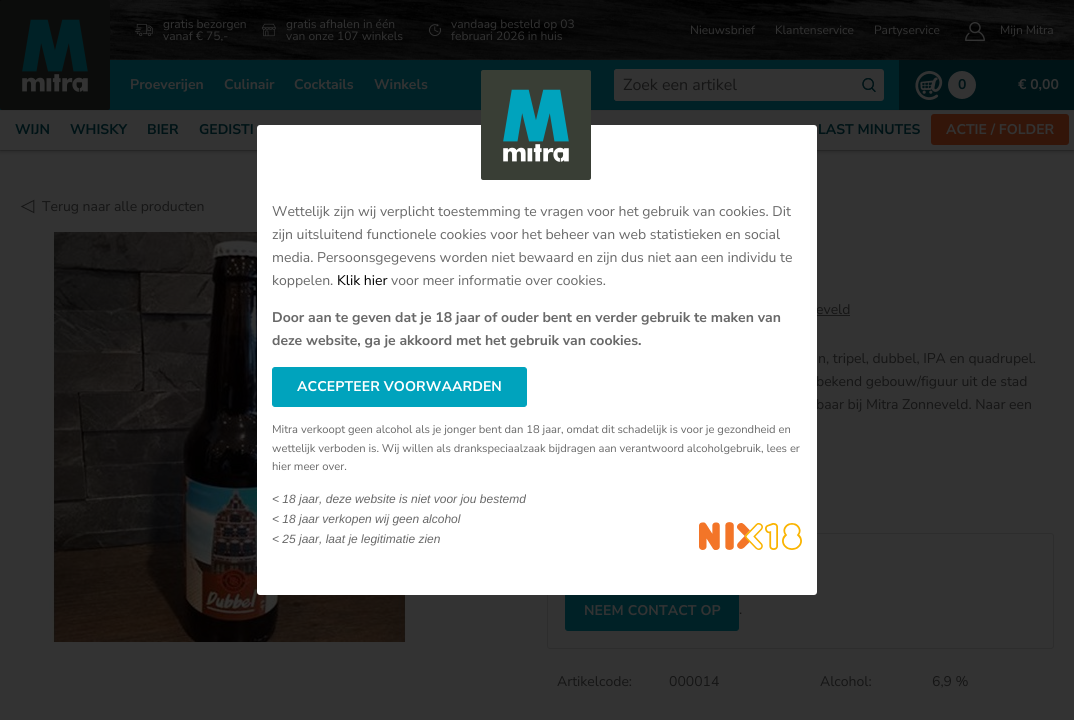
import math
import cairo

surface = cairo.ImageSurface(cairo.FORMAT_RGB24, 1074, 720)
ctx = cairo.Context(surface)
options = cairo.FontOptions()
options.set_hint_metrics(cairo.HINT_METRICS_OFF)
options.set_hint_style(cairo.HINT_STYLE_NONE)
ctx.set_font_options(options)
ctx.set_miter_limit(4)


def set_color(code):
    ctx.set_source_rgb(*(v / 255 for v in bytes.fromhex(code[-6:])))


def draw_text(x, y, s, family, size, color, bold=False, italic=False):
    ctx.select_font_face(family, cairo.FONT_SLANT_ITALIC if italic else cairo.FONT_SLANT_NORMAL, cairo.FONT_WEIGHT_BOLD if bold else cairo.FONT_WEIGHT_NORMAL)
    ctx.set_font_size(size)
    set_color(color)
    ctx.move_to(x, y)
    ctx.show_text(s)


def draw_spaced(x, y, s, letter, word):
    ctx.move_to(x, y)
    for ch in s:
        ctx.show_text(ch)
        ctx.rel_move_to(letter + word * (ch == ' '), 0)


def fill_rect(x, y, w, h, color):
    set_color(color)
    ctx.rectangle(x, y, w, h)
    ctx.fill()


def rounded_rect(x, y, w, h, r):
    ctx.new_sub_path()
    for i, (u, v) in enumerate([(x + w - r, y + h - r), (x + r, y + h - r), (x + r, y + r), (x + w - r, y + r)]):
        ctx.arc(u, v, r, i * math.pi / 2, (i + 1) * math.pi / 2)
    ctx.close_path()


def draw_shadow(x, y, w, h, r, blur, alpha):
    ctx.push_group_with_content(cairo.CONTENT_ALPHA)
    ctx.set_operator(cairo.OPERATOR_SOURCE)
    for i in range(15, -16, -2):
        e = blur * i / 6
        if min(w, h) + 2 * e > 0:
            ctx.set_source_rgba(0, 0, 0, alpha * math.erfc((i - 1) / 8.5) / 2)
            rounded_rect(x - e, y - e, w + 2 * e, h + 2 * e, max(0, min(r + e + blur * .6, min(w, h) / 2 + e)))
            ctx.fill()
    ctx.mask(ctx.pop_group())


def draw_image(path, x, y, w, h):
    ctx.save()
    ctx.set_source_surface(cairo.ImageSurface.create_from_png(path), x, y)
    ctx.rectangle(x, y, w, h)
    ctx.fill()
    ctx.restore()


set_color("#333333")
ctx.paint()
draw_image("assets/img1.png", 0, 0, 1074, 60)
fill_rect(0, 60, 899, 50, "#002126")
fill_rect(0, 150, 1074, 1, "#2c2c2c")
set_color("#000000")
draw_shadow(0, 112, 1074, 40, 0, 2, 0.2)
draw_image("assets/img2.png", 0, 0, 110, 110)
draw_image("assets/img3.png", 135, 23, 18, 14)
draw_text(163, 28, "gratis bezorgen", "Nunito Sans", 12, "#333333")
draw_text(163, 40, "vanaf € 75,-", "Nunito Sans", 12, "#333333")
draw_image("assets/img4.png", 262, 23, 14, 14)
draw_text(286, 28, "gratis afhalen in één", "Nunito Sans", 12, "#333333")
draw_text(286, 40, "van onze 107 winkels", "Nunito Sans", 12, "#333333")
draw_image("assets/img5.png", 429, 24, 12, 12)
draw_text(451, 28, "vandaag besteld op 03", "Nunito Sans", 12, "#333333")
draw_text(451, 40, "februari 2026 in huis", "Nunito Sans", 12, "#333333")
draw_text(690, 34, "Nieuwsbrief", "Nunito Sans", 12, "#333333")
draw_text(775, 34, "Klantenservice", "Nunito Sans", 12, "#333333")
draw_text(874, 34, "Partyservice", "Nunito Sans", 12, "#333333")
draw_image("assets/img6.png", 965, 22, 20, 19)
draw_text(1000, 34, "Mijn Mitra", "Nunito Sans", 12, "#333333")
draw_text(130, 89, "Proeverijen", "Nunito Sans", 14, "#333333", bold=True)
draw_text(224, 89, "Culinair", "Nunito Sans", 14, "#333333", bold=True)
draw_text(294, 89, "Cocktails", "Nunito Sans", 14, "#333333", bold=True)
draw_text(374, 89, "Winkels", "Nunito Sans", 14, "#333333", bold=True)
rounded_rect(614, 69, 270, 32, 3)
ctx.fill()
rounded_rect(614, 69, 240, 32, 3)
ctx.fill()
draw_text(623, 90, "Zoek een artikel", "Nunito Sans", 16, "#151515")
draw_image("assets/img7.png", 862, 78, 14, 14)
fill_rect(899, 60, 175, 50, "#001316")
draw_image("assets/img8.png", 915, 71, 28, 29)
set_color("#333333")
ctx.arc(962, 85, 14, 0, 2 * math.pi)
ctx.fill()
draw_text(958, 89, "0", "Nunito Sans", 14, "#001316", bold=True)
draw_text(1018, 89, "€ 0,00", "Nunito Sans", 14, "#333333", bold=True)
fill_rect(0, 111, 1074, 39, "#333333")
draw_text(15, 134, "WIJN", "Nunito Sans", 14, "#001316", bold=True)
draw_text(70, 134, "WHISKY", "Nunito Sans", 14, "#001316", bold=True)
draw_text(147, 134, "BIER", "Nunito Sans", 14, "#001316", bold=True)
draw_text(199, 134, "GEDISTI", "Nunito Sans", 14, "#001316", bold=True)
draw_text(818, 134, "LAST MINUTES", "Nunito Sans", 14, "#001316", bold=True)
set_color("#331509")
rounded_rect(931, 114, 138, 31, 3)
ctx.fill()
draw_text(946, 134, "ACTIE / FOLDER", "Nunito Sans", 14, "#333333", bold=True)
draw_image("assets/img9.png", 20, 199, 15, 15)
draw_text(42, 211, "Terug naar alle producten", "Nunito Sans", 14, "#151515")
draw_image("assets/img10.png", 49, 232, 360, 410)
draw_text(816, 314, "eveld", "Nunito Sans", 14, "#151515")
fill_rect(817, 315, 33, 1, "#181818")
draw_text(818, 363, "n, tripel, dubbel, IPA en quadrupel.", "Nunito Sans", 14, "#151515")
draw_text(816, 386, "bekend gebouw/figuur uit de stad", "Nunito Sans", 14, "#151515")
draw_text(816, 409, "baar bij Mitra Zonneveld. Naar een", "Nunito Sans", 14, "#151515")
rounded_rect(547.5, 533.5, 506, 115, 2.5)
set_color("#2d2d2d")
ctx.set_line_width(1)
ctx.stroke()
set_color("#002126")
rounded_rect(565.5, 590.5, 173, 40, 2.5)
ctx.fill_preserve()
ctx.stroke()
ctx.select_font_face("Nunito Sans", cairo.FONT_SLANT_NORMAL, cairo.FONT_WEIGHT_BOLD)
set_color("#333333")
draw_spaced(584, 615, "NEEM CONTACT OP", 0.1, 0)
draw_text(739, 614, ".", "Nunito Sans", 14, "#151515")
draw_text(557, 686, "Artikelcode:", "Nunito Sans", 14, "#151515")
draw_text(669, 686, "000014", "Nunito Sans", 14, "#151515")
draw_text(820, 686, "Alcohol:", "Nunito Sans", 14, "#151515")
draw_text(932, 686, "6,9 %", "Nunito Sans", 14, "#151515")
set_color("#ffffff")
rounded_rect(257, 125, 560, 470, 3)
ctx.fill()
draw_image("assets/img11.png", 481, 70, 110, 110)
draw_text(272, 216, "Wettelijk zijn wij verplicht toestemming te vragen voor het gebruik van cookies. Dit", "Nunito Sans", 14, "#686868")
draw_text(272, 239, "zijn uitsluitend functionele cookies voor het beheer van web statistieken en social", "Nunito Sans", 14, "#686868")
draw_text(272, 262, "media. Persoonsgegevens worden niet bewaard en zijn dus niet aan een individu te", "Nunito Sans", 14, "#686868")
draw_text(272, 285, "koppelen.", "Nunito Sans", 14, "#686868")
draw_text(337, 285, "Klik hier", "Nunito Sans", 14, "#000000")
draw_text(391, 285, "voor meer informatie over cookies.", "Nunito Sans", 14, "#686868")
draw_text(272, 322, "Door aan te geven dat je 18 jaar of ouder bent en verder gebruik te maken van", "Nunito Sans", 14, "#686868", bold=True)
draw_text(272, 345, "deze website, ga je akkoord met het gebruik van cookies.", "Nunito Sans", 14, "#686868", bold=True)
set_color("#00a3bd")
rounded_rect(272.5, 367.5, 254, 39, 2.5)
ctx.fill_preserve()
ctx.stroke()
set_color("#ffffff")
draw_spaced(297, 391, "ACCEPTEER VOORWAARDEN", 0.1, 0)
draw_text(272, 433, "Mitra verkoopt geen alcohol als je jonger bent dan 18 jaar, omdat dit schadelijk is voor je gezondheid en", "Nunito Sans", 11.2, "#686868")
draw_text(272, 452, "wettelijk verboden is. Wij willen als drankspeciaalzaak bijdragen aan verantwoord alcoholgebruik, lees er", "Nunito Sans", 11.2, "#686868")
draw_text(272, 470, "hier meer over.", "Nunito Sans", 11.2, "#686868")
draw_text(272, 503, "< 18 jaar, deze website is niet voor jou bestemd", "Liberation Sans", 12, "#686868", italic=True)
draw_text(272, 523, "< 18 jaar verkopen wij geen alcohol", "Liberation Sans", 12, "#686868", italic=True)
draw_text(272, 543, "< 25 jaar, laat je legitimatie zien", "Liberation Sans", 12, "#686868", italic=True)
draw_image("assets/img12.png", 699, 522, 103, 28)
surface.write_to_png("output.png")
